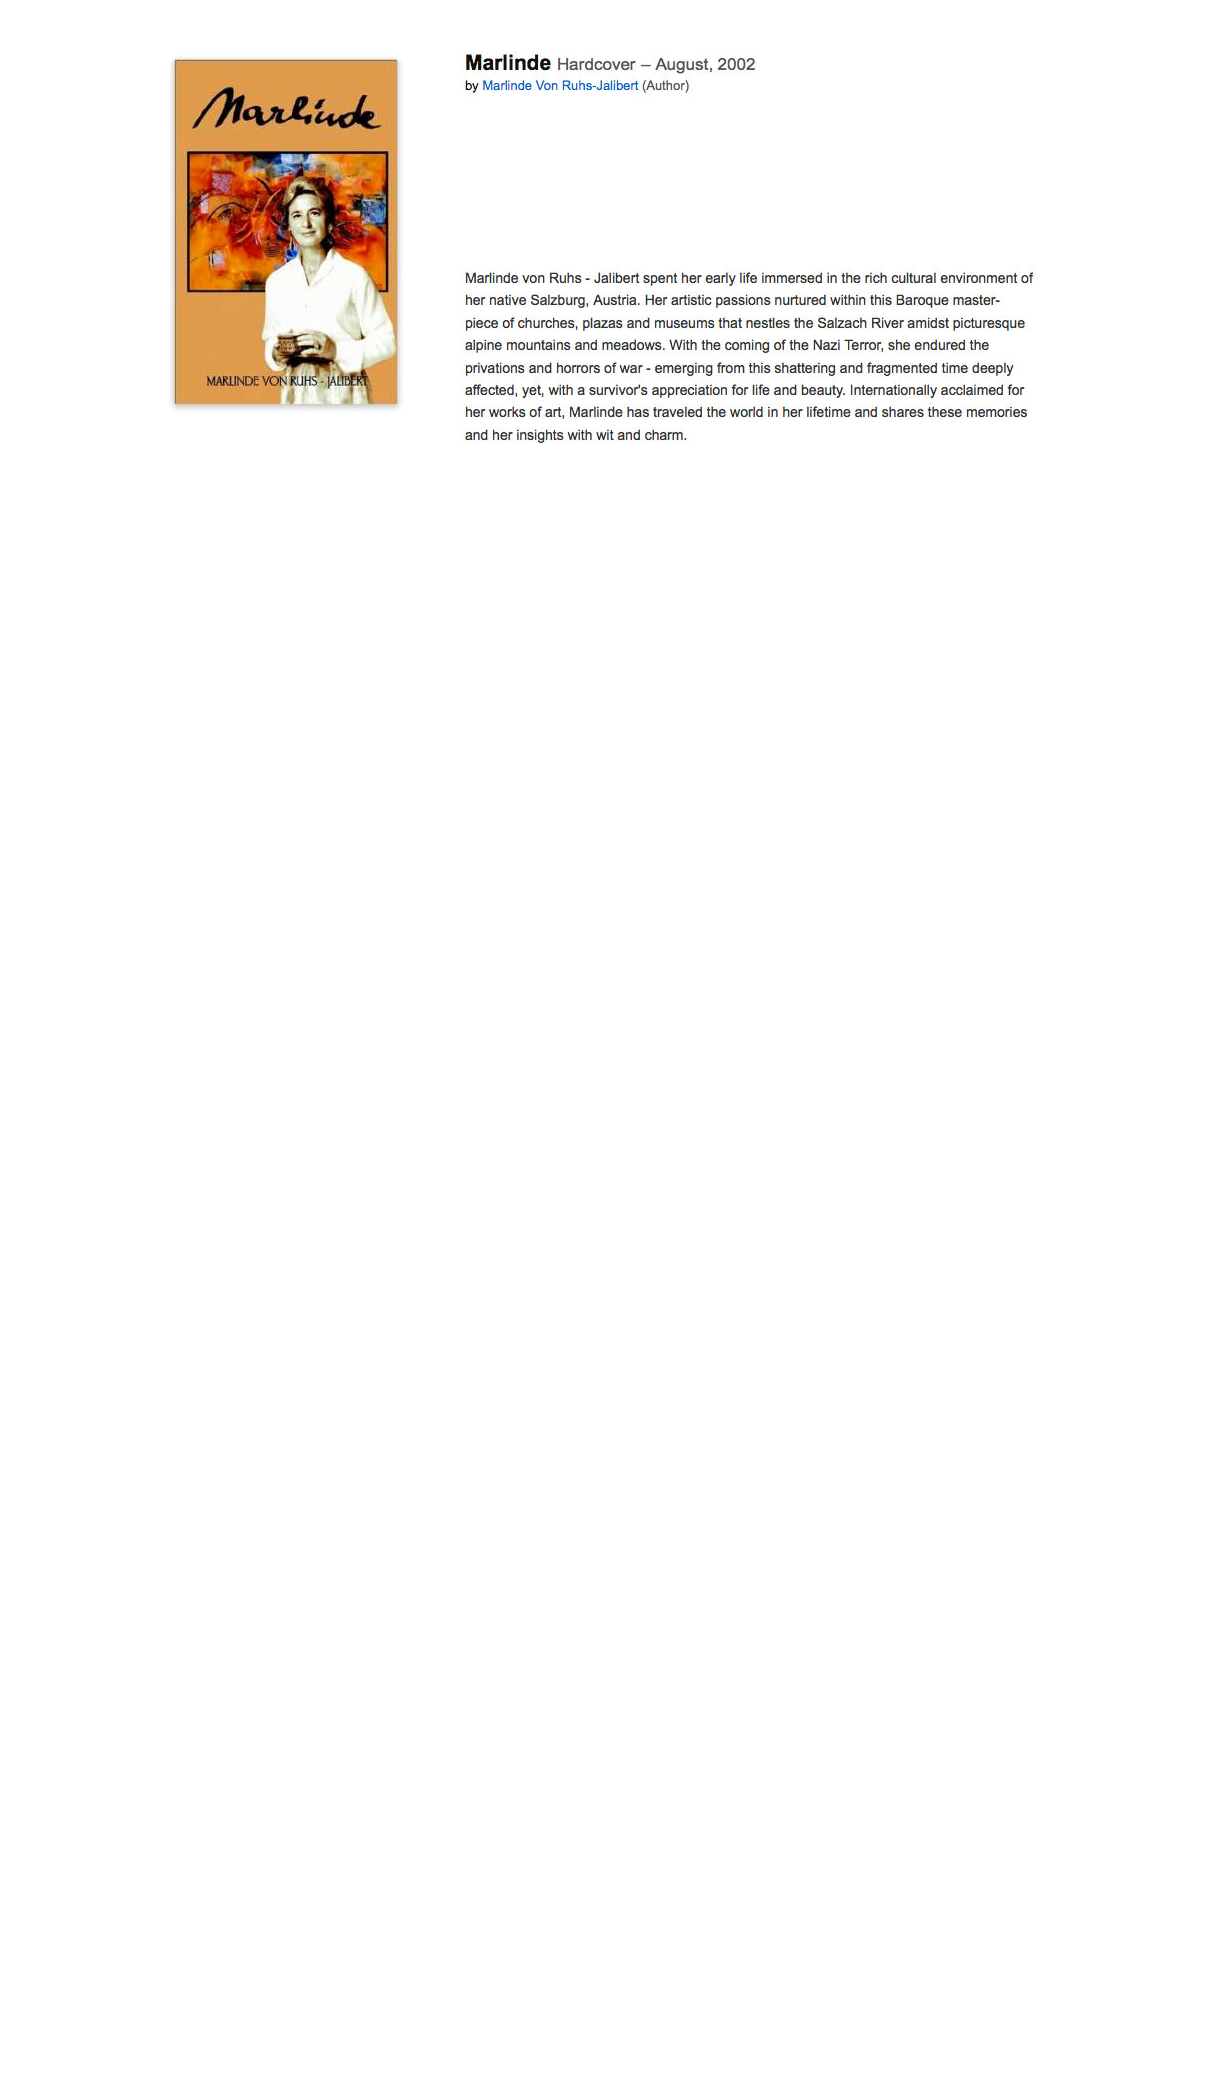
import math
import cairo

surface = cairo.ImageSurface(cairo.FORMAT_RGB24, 1210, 2091)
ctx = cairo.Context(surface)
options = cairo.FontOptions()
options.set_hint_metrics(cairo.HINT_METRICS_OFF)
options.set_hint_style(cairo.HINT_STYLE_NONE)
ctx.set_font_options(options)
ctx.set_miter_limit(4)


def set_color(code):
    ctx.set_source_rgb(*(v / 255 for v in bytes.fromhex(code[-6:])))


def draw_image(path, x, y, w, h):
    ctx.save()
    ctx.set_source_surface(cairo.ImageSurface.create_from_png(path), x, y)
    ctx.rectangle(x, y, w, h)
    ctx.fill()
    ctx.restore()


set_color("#ffffff")
ctx.paint()
draw_image("assets/img1.png", 169, 51, 868, 392)
surface.write_to_png("output.png")
